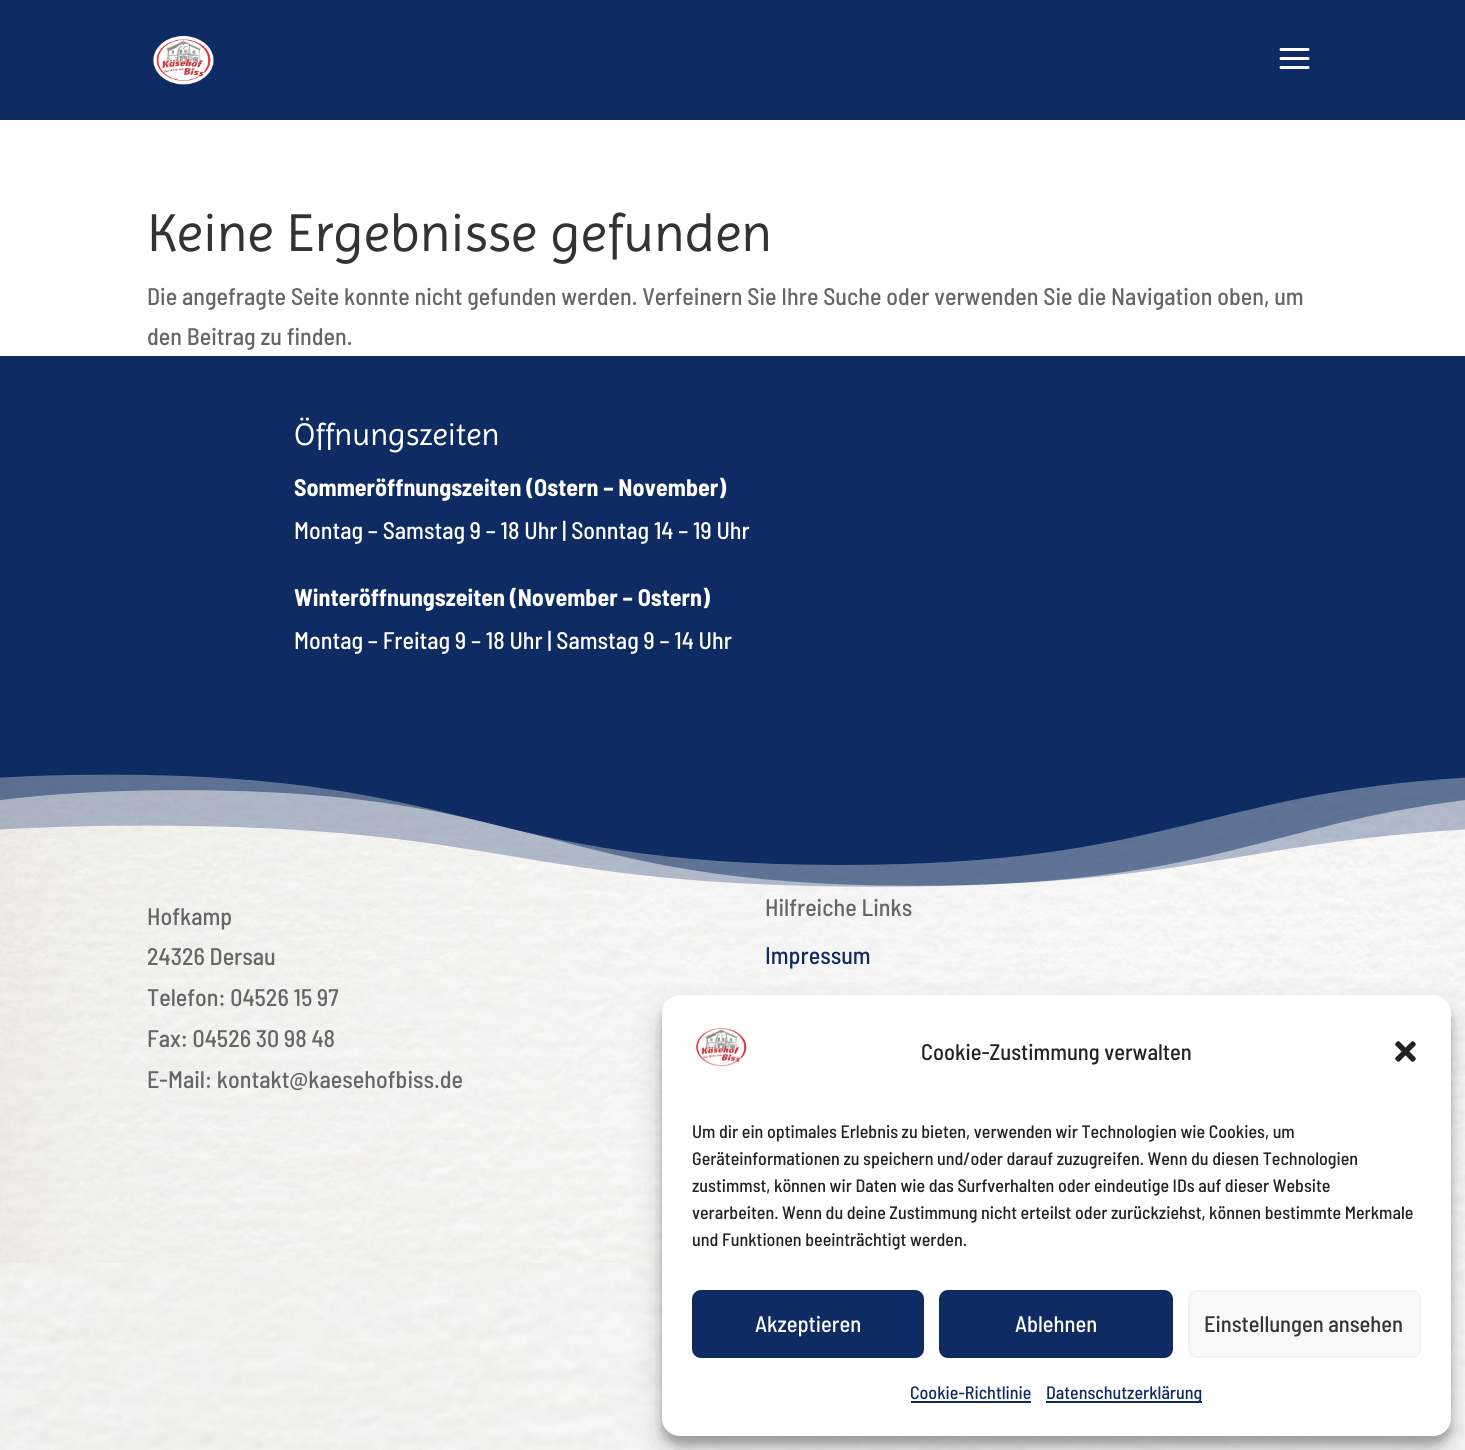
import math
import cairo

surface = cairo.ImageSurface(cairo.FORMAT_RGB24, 1465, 1450)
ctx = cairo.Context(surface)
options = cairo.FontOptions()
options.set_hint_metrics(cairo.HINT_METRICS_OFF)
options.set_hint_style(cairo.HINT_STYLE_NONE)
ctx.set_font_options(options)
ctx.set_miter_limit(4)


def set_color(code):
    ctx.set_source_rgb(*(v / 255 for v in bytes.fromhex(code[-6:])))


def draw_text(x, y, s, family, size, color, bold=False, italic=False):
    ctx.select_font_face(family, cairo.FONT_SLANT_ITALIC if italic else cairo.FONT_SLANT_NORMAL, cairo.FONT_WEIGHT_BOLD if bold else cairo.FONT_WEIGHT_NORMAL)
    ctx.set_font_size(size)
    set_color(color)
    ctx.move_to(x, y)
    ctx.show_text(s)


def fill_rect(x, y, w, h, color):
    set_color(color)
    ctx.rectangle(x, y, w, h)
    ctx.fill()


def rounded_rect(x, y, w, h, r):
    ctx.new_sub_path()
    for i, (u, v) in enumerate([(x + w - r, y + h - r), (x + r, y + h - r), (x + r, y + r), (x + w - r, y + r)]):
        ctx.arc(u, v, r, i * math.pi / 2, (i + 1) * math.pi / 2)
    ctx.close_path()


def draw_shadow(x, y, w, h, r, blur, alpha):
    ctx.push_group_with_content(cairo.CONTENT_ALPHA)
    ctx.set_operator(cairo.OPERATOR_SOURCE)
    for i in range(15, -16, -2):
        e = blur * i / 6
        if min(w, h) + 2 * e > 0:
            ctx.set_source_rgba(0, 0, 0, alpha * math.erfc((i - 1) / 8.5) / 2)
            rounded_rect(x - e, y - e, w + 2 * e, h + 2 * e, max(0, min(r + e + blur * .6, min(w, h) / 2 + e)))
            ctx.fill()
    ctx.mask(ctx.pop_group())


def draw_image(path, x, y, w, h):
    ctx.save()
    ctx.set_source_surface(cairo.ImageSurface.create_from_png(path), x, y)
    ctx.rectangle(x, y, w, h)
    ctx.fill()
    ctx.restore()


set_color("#ffffff")
ctx.paint()
draw_image("assets/img1.png", 0, 1263, 1465, 187)
fill_rect(0, 0, 1465, 120, "#0e2c63")
draw_image("assets/img2.png", 153, 35, 61, 50)
draw_image("assets/img3.png", 1279, 48, 31, 21)
draw_text(147, 251, "Keine Ergebnisse gefunden", "Imprima", 54, "#333333")
draw_text(147, 305, "Die angefragte Seite konnte nicht gefunden werden. Verfeinern Sie Ihre Suche oder verwenden Sie die Navigation oben, um", "Barlow Semi Condensed Medium", 24, "#666666")
draw_text(147, 345, "den Beitrag zu finden.", "Barlow Semi Condensed Medium", 24, "#666666")
fill_rect(0, 356, 1465, 418, "#0e2c63")
draw_text(294, 445, "Öffnungszeiten", "Imprima", 31.5, "#ffffff")
draw_text(294, 496, "Sommeröffnungszeiten (Ostern – November)", "Barlow Semi Condensed", 24, "#ffffff", bold=True)
draw_text(294, 539, "Montag – Samstag 9 – 18 Uhr | Sonntag 14 – 19 Uhr", "Barlow Semi Condensed Medium", 24, "#ffffff")
draw_text(294, 606, "Winteröffnungszeiten (November – Ostern)", "Barlow Semi Condensed", 24, "#ffffff", bold=True)
draw_text(294, 649, "Montag – Freitag 9 – 18 Uhr | Samstag 9 – 14 Uhr", "Barlow Semi Condensed Medium", 24, "#ffffff")
draw_image("assets/img4.png", 0, 774, 1465, 489)
draw_image("assets/img5.png", 0, 774, 1465, 113)
draw_text(147, 925, "Hofkamp", "Barlow Semi Condensed Medium", 24, "#666666")
draw_text(147, 965, "24326 Dersau", "Barlow Semi Condensed Medium", 24, "#666666")
draw_text(147, 1006, "Telefon: 04526 15 97", "Barlow Semi Condensed Medium", 24, "#666666")
draw_text(147, 1047, "Fax: 04526 30 98 48", "Barlow Semi Condensed Medium", 24, "#666666")
draw_text(147, 1088, "E-Mail: kontakt@kaesehofbiss.de", "Barlow Semi Condensed Medium", 24, "#666666")
draw_text(765, 916, "Hilfreiche Links", "Barlow Semi Condensed Medium", 24, "#666666")
draw_text(765, 964, "Impressum", "Barlow Semi Condensed Medium", 24, "#0e2c63")
set_color("#000000")
draw_shadow(662, 1004, 789, 441, 18, 4.5, 0.23)
draw_shadow(662, 1010, 789, 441, 18, 15, 0.19)
set_color("#ffffff")
rounded_rect(662, 995, 789, 441, 18)
ctx.fill()
draw_image("assets/img6.png", 696, 1028, 51, 39)
draw_text(921, 1060, "Cookie-Zustimmung verwalten", "Barlow Semi Condensed Medium", 22.5, "#222222")
draw_image("assets/img7.png", 1395, 1041, 21, 21)
draw_text(692, 1138, "Um dir ein optimales Erlebnis zu bieten, verwenden wir Technologien wie Cookies, um", "Barlow Semi Condensed Medium", 18, "#222222")
draw_text(692, 1165, "Geräteinformationen zu speichern und/oder darauf zuzugreifen. Wenn du diesen Technologien", "Barlow Semi Condensed Medium", 18, "#222222")
draw_text(692, 1192, "zustimmst, können wir Daten wie das Surfverhalten oder eindeutige IDs auf dieser Website", "Barlow Semi Condensed Medium", 18, "#222222")
draw_text(692, 1219, "verarbeiten. Wenn du deine Zustimmung nicht erteilst oder zurückziehst, können bestimmte Merkmale", "Barlow Semi Condensed Medium", 18, "#222222")
draw_text(692, 1246, "und Funktionen beeinträchtigt werden.", "Barlow Semi Condensed Medium", 18, "#222222")
set_color("#0e2c63")
rounded_rect(693, 1291, 230, 66, 8)
ctx.fill_preserve()
ctx.stroke()
draw_text(755, 1332, "Akzeptieren", "Barlow Semi Condensed Medium", 22.5, "#ffffff")
set_color("#0e2c63")
rounded_rect(940, 1291, 232, 66, 8)
ctx.fill_preserve()
ctx.stroke()
draw_text(1015, 1332, "Ablehnen", "Barlow Semi Condensed Medium", 22.5, "#ffffff")
set_color("#f9f9f9")
rounded_rect(1189, 1291, 231, 66, 8)
ctx.fill_preserve()
set_color("#f2f2f2")
ctx.stroke()
draw_text(1204, 1332, "Einstellungen ansehen", "Barlow Semi Condensed Medium", 22.5, "#333333")
draw_text(910, 1399, "Cookie-Richtlinie", "Barlow Semi Condensed Medium", 18, "#0e2c63")
fill_rect(911, 1401, 120, 2, "#0e2c63")
fill_rect(1046, 1401, 156, 2, "#0e2c63")
draw_text(1046, 1399, "Datenschutzerklärung", "Barlow Semi Condensed Medium", 18, "#0e2c63")
surface.write_to_png("output.png")
